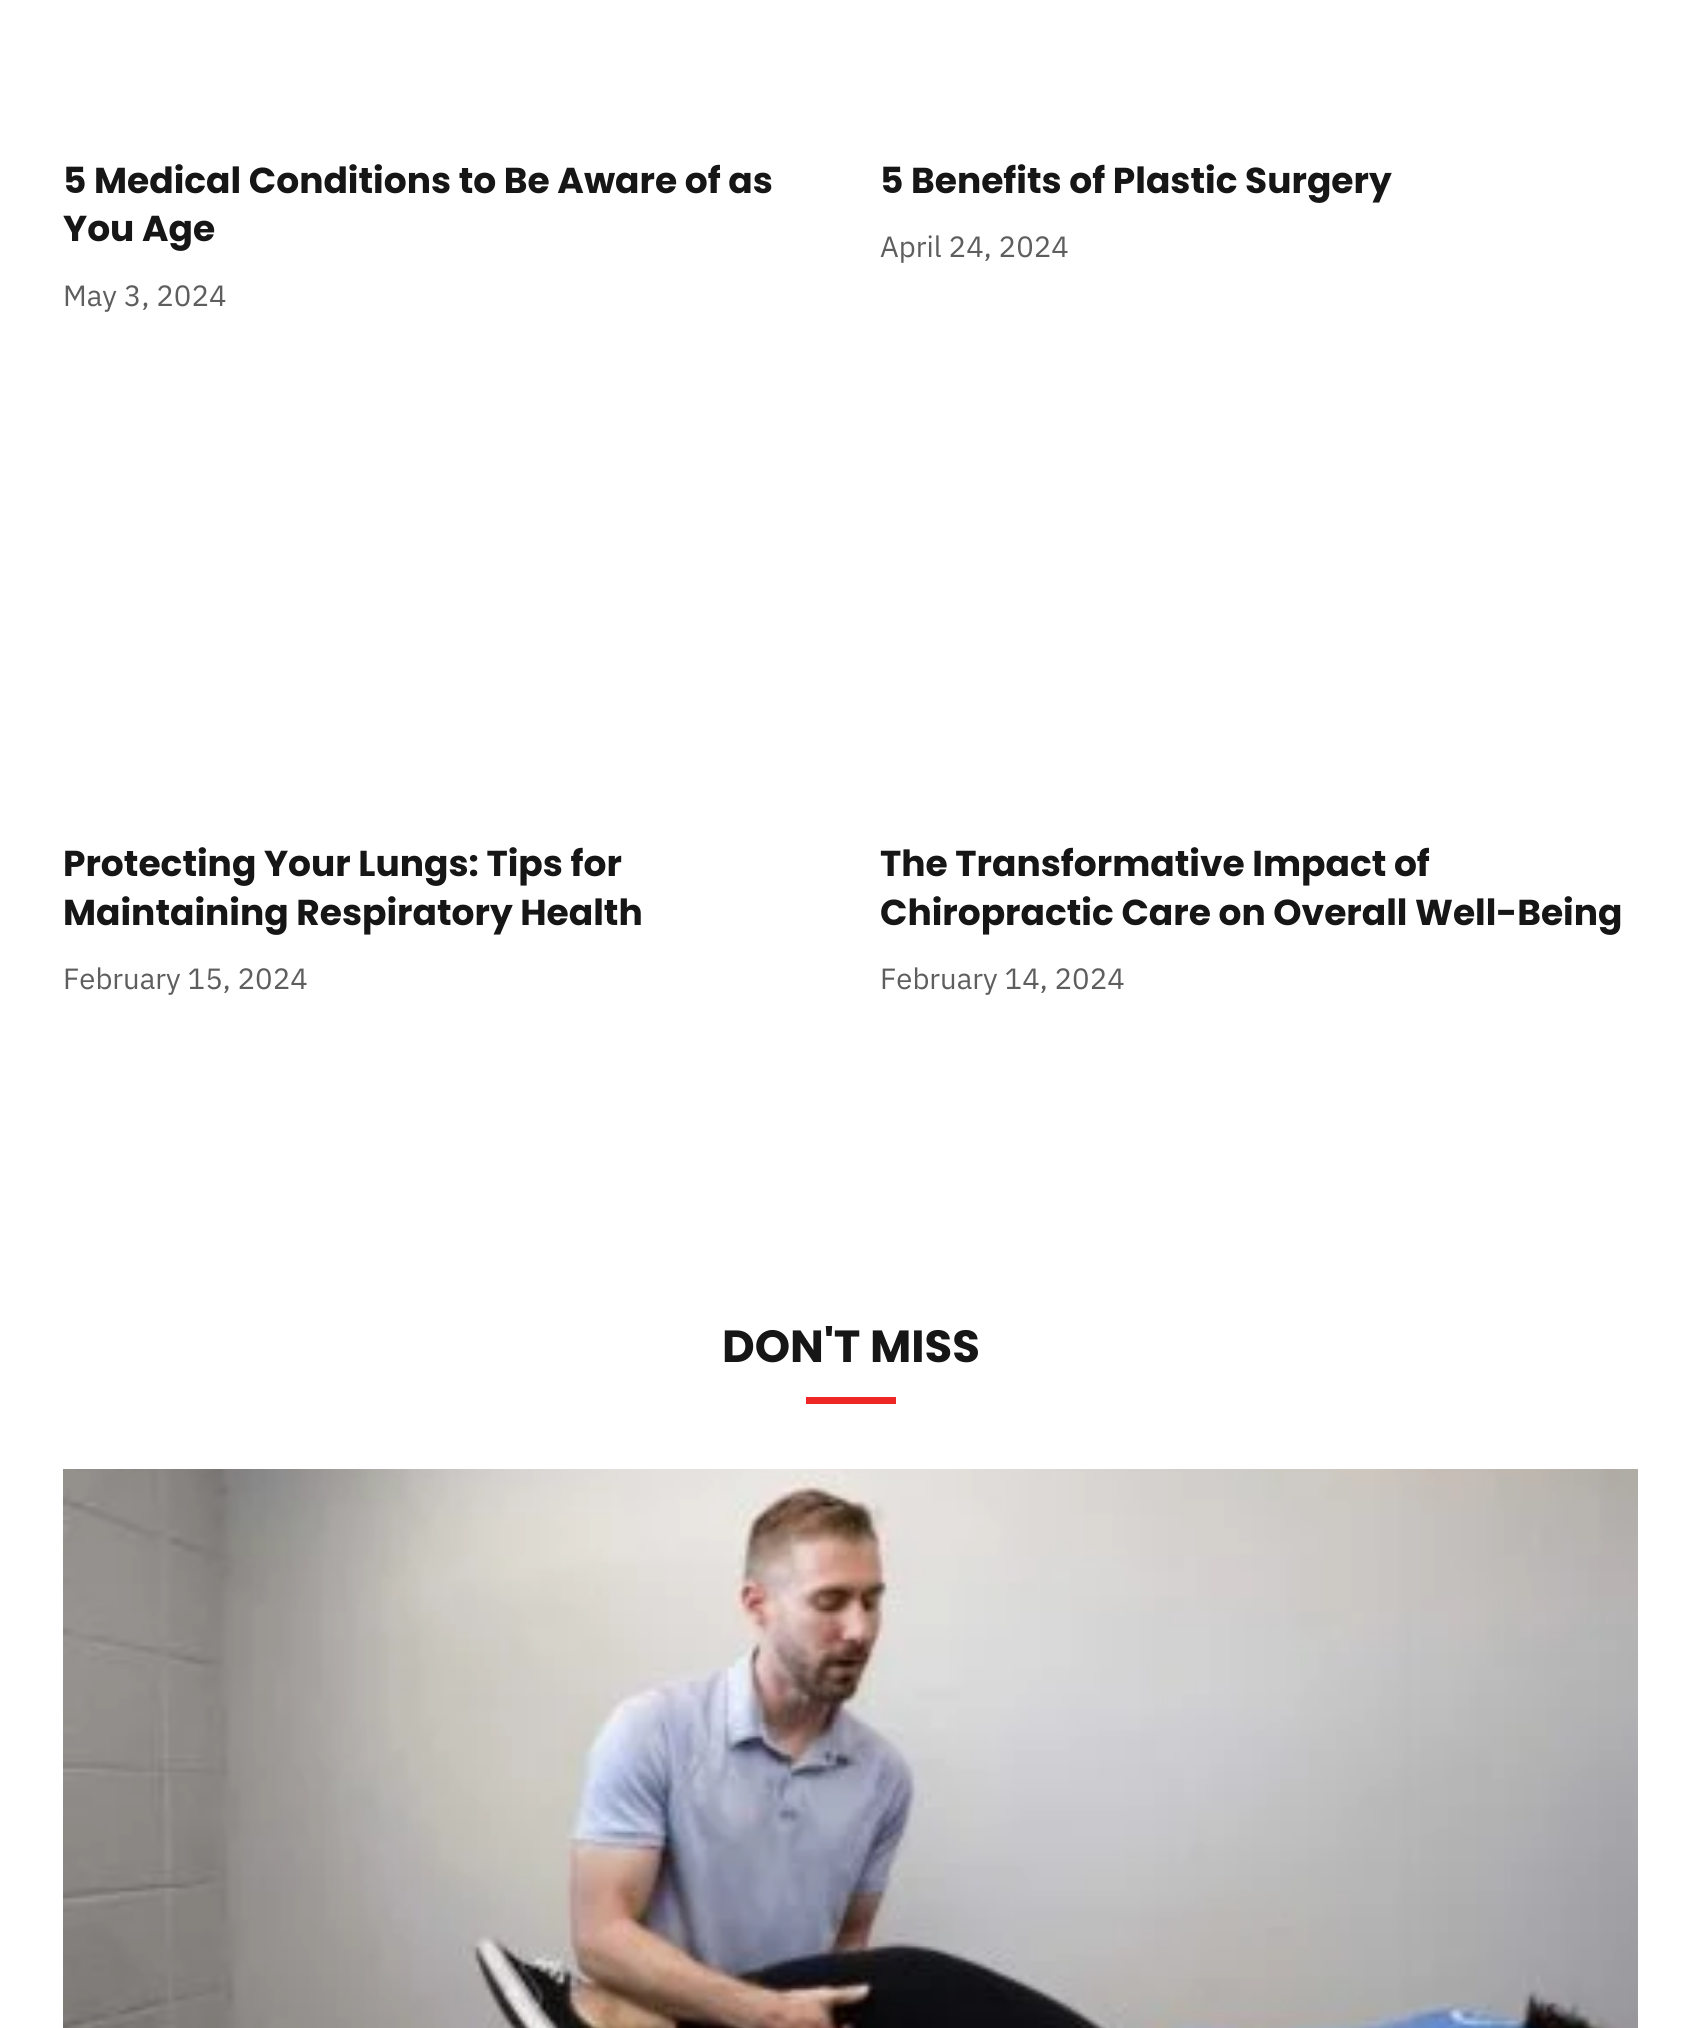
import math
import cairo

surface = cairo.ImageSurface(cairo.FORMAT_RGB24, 1699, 2028)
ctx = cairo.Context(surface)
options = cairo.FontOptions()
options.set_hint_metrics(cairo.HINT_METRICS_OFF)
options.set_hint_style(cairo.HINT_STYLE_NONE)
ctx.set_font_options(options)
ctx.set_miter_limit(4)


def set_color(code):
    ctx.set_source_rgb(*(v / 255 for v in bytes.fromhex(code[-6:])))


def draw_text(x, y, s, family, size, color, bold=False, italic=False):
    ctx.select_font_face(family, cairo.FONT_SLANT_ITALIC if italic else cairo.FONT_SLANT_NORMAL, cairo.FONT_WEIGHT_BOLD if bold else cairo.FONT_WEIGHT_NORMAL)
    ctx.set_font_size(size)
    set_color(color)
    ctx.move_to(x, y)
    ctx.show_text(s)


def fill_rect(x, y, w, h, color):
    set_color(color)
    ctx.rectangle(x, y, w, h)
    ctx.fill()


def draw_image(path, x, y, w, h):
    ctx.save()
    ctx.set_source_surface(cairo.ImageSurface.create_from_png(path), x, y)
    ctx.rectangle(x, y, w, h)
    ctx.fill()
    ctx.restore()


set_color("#ffffff")
ctx.paint()
draw_text(63, 193, "5 Medical Conditions to Be Aware of as", "Poppins", 36, "#161616", bold=True)
draw_text(63, 241, "You Age", "Poppins", 36, "#161616", bold=True)
draw_text(63, 306, "May 3, 2024", "IBM Plex Sans", 29.25, "#5e5e5e")
draw_text(880, 193, "5 Benefits of Plastic Surgery", "Poppins", 36, "#161616", bold=True)
draw_text(880, 257, "April 24, 2024", "IBM Plex Sans", 29.25, "#5e5e5e")
draw_text(63, 876, "Protecting Your Lungs: Tips for", "Poppins", 36, "#161616", bold=True)
draw_text(63, 925, "Maintaining Respiratory Health", "Poppins", 36, "#161616", bold=True)
draw_text(63, 989, "February 15, 2024", "IBM Plex Sans", 29.25, "#5e5e5e")
draw_text(880, 876, "The Transformative Impact of", "Poppins", 36, "#161616", bold=True)
draw_text(880, 925, "Chiropractic Care on Overall Well-Being", "Poppins", 36, "#161616", bold=True)
draw_text(880, 989, "February 14, 2024", "IBM Plex Sans", 29.25, "#5e5e5e")
draw_text(722, 1362, "DON'T MISS", "Poppins", 45, "#161616", bold=True)
fill_rect(806, 1397, 90, 7, "#ef2626")
draw_image("assets/img1.png", 63, 1469, 1575, 559)
surface.write_to_png("output.png")
